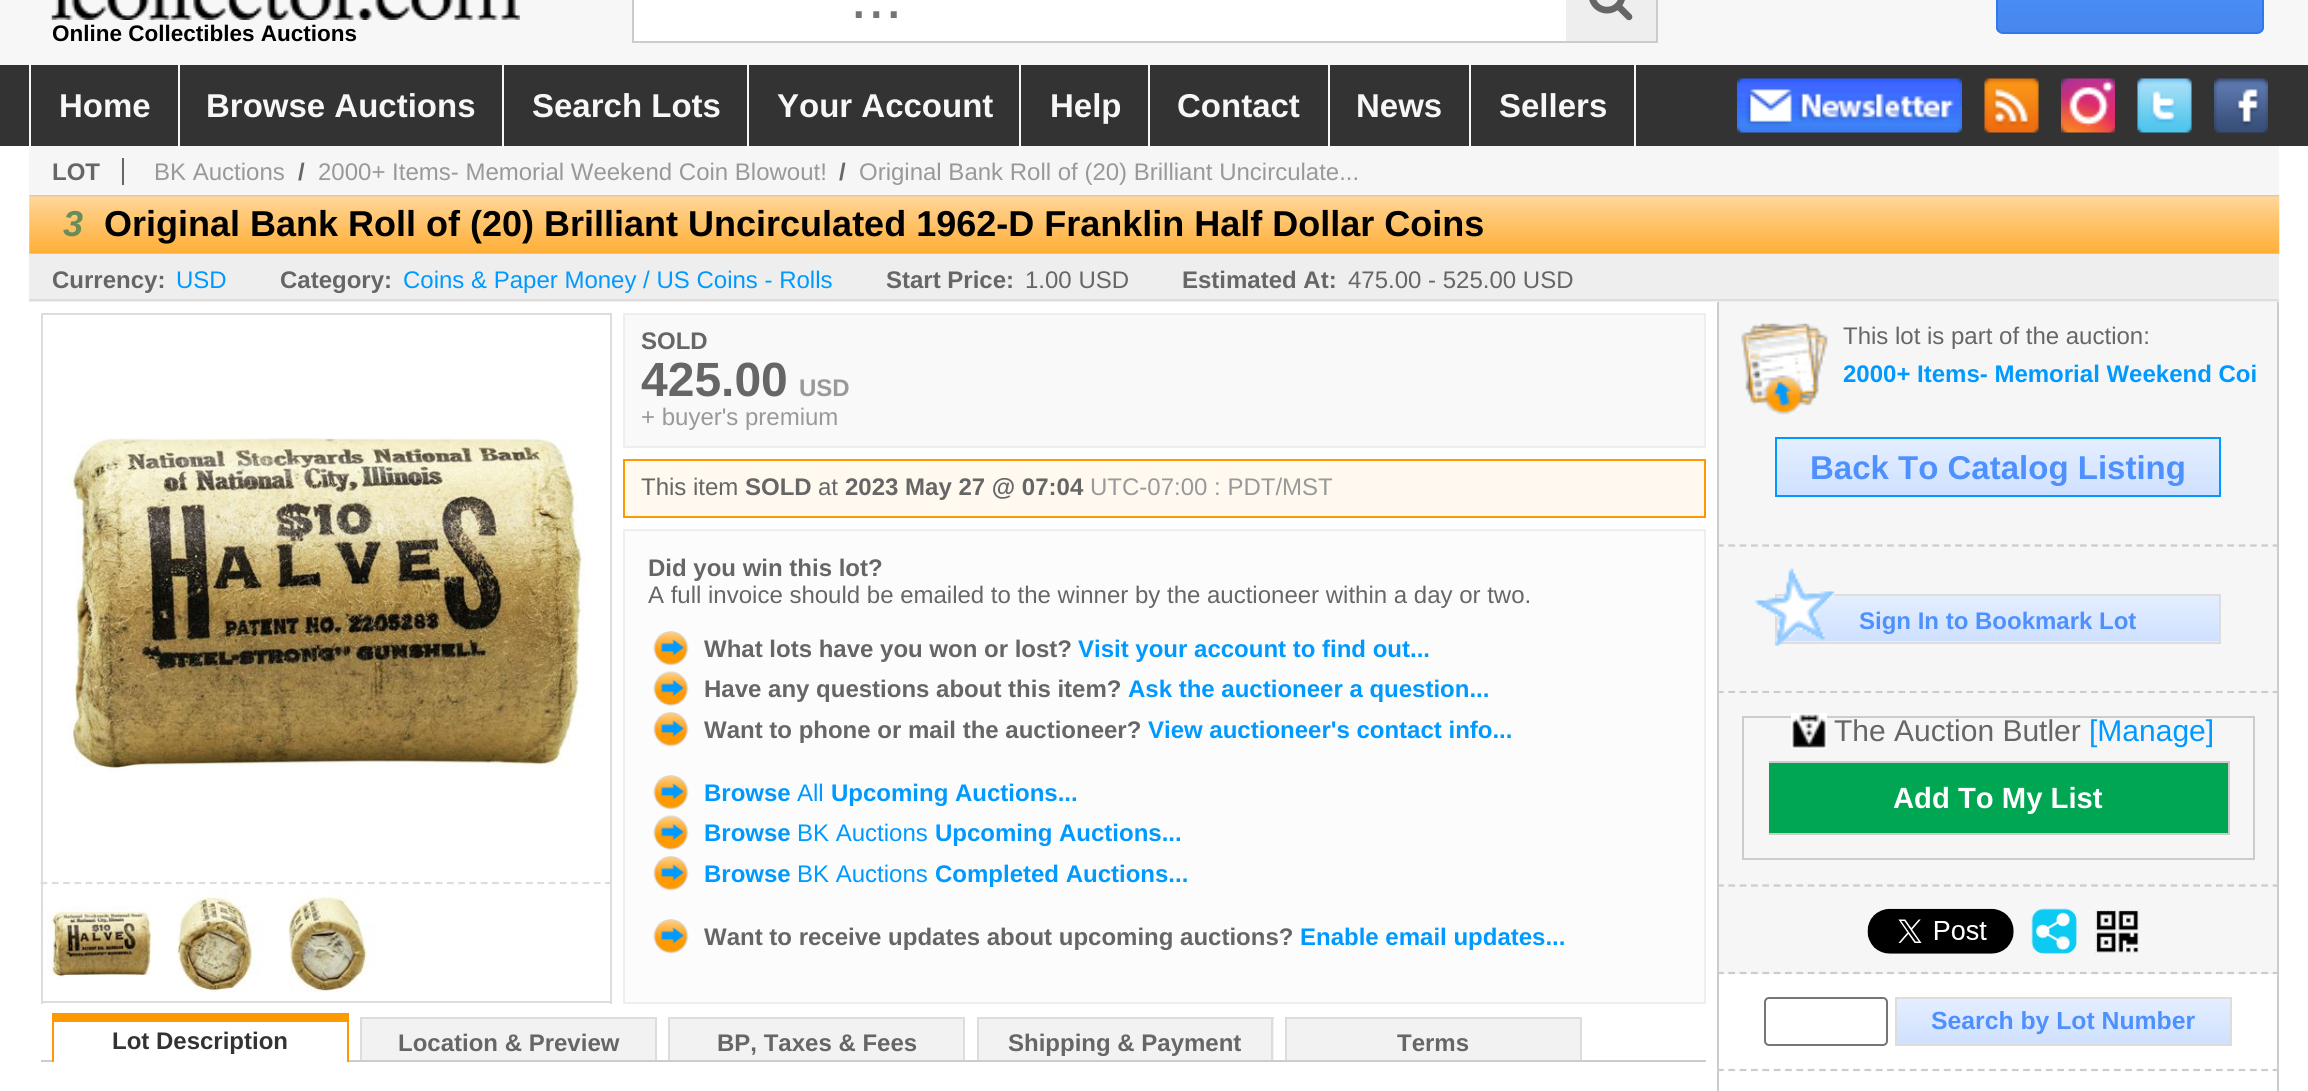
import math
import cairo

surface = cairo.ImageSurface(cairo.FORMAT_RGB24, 2308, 1091)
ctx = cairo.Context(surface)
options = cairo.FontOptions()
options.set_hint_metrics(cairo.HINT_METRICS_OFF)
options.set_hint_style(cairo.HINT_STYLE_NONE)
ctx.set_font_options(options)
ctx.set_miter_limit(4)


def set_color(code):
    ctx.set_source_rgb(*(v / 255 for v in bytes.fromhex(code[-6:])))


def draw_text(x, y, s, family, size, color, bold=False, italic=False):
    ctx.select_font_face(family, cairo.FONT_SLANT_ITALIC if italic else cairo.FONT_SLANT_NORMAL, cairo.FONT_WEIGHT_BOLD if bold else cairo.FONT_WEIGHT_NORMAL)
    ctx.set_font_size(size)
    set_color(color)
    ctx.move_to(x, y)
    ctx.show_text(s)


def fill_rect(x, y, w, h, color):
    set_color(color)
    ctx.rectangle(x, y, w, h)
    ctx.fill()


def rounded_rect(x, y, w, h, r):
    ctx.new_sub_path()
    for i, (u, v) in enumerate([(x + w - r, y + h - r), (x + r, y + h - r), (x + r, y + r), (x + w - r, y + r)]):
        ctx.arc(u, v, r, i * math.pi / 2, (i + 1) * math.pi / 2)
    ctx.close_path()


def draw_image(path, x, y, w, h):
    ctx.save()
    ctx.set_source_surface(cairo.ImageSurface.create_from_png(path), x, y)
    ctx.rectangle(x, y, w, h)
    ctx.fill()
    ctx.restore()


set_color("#ffffff")
ctx.paint()
fill_rect(0, 0, 2308, 65, "#f7f7f7")
fill_rect(634, 0, 932, 41, "#ffffff")
fill_rect(632, 41, 934, 2, "#cccccc")
fill_rect(632, 0, 2, 43, "#cccccc")
draw_text(850, 18, "...", "Liberation Sans", 63, "#757575")
fill_rect(1566, 0, 90, 41, "#eeeeee")
fill_rect(1656, 0, 2, 43, "#cccccc")
fill_rect(1566, 41, 92, 2, "#cccccc")
draw_image("assets/img1.png", 1589, 0, 44, 21)
ctx.save()
rounded_rect(1996, -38, 268, 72, 7)
ctx.clip()
gradient = cairo.LinearGradient(2130, -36, 2130, 32)
gradient.add_color_stop_rgba(0, 0.302, 0.565, 0.996, 1)
gradient.add_color_stop_rgba(1, 0.278, 0.529, 0.929, 1)
ctx.set_source(gradient)
ctx.rectangle(1996, 0, 268, 32)
ctx.fill()
ctx.restore()
rounded_rect(1997, -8, 266, 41, 6)
set_color("#3079ed")
ctx.stroke()
draw_image("assets/img2.png", 51, 0, 469, 20)
draw_text(52, 41, "Online Collectibles Auctions", "Liberation Sans", 22.5, "#000000", bold=True)
fill_rect(0, 65, 2308, 81, "#333333")
fill_rect(29, 65, 2, 81, "#f7f7f7")
draw_text(59, 117, "Home", "Liberation Sans", 33, "#f7f7f7", bold=True)
fill_rect(178, 65, 2, 81, "#f7f7f7")
draw_text(206, 117, "Browse Auctions", "Liberation Sans", 33, "#f7f7f7", bold=True)
fill_rect(502, 65, 2, 81, "#f7f7f7")
draw_text(532, 117, "Search Lots", "Liberation Sans", 33, "#f7f7f7", bold=True)
fill_rect(747, 65, 2, 81, "#f7f7f7")
draw_text(777, 117, "Your Account", "Liberation Sans", 33, "#f7f7f7", bold=True)
fill_rect(1019, 65, 2, 81, "#f7f7f7")
draw_text(1050, 117, "Help", "Liberation Sans", 33, "#f7f7f7", bold=True)
fill_rect(1148, 65, 2, 81, "#f7f7f7")
draw_text(1177, 117, "Contact", "Liberation Sans", 33, "#f7f7f7", bold=True)
fill_rect(1328, 65, 2, 81, "#f7f7f7")
draw_text(1356, 117, "News", "Liberation Sans", 33, "#f7f7f7", bold=True)
fill_rect(1634, 65, 2, 81, "#f7f7f7")
fill_rect(1469, 65, 2, 81, "#f7f7f7")
draw_text(1499, 117, "Sellers", "Liberation Sans", 33, "#f7f7f7", bold=True)
draw_image("assets/img3.png", 1737, 78, 225, 55)
draw_image("assets/img4.png", 1984, 78, 55, 55)
draw_image("assets/img5.png", 2061, 78, 54, 55)
draw_image("assets/img6.png", 2137, 78, 55, 55)
draw_image("assets/img7.png", 2214, 78, 54, 55)
fill_rect(29, 146, 2250, 50, "#f6f6f6")
draw_text(52, 180, "LOT", "Liberation Sans", 24, "#666666", bold=True)
fill_rect(122, 158, 2, 27, "#666666")
draw_text(154, 180, "BK Auctions", "Liberation Sans", 24, "#999999")
draw_text(298, 180, "/", "Liberation Sans", 24, "#666666", bold=True)
draw_text(318, 180, "2000+ Items- Memorial Weekend Coin Blowout!", "Liberation Sans", 24, "#999999")
draw_text(839, 180, "/", "Liberation Sans", 24, "#666666", bold=True)
draw_text(859, 180, "Original Bank Roll of (20) Brilliant Uncirculate...", "Liberation Sans", 24, "#999999")
draw_image("assets/img8.png", 29, 195, 2251, 59)
draw_text(63, 236, "3", "Liberation Sans", 36, "#698c5b", bold=True, italic=True)
draw_text(104, 236, "Original Bank Roll of (20) Brilliant Uncirculated 1962-D Franklin Half Dollar Coins", "Liberation Sans", 36, "#000000", bold=True)
fill_rect(29, 254, 2250, 48, "#eeeeee")
fill_rect(29, 299, 2250, 2, "#dddddd")
draw_text(52, 288, "Currency:", "Liberation Sans", 24, "#666666", bold=True)
draw_text(176, 288, "USD", "Liberation Sans", 24, "#0099ff")
draw_text(280, 288, "Category:", "Liberation Sans", 24, "#666666", bold=True)
draw_text(403, 288, "Coins & Paper Money / US Coins - Rolls", "Liberation Sans", 24, "#0099ff")
draw_text(886, 288, "Start Price:", "Liberation Sans", 24, "#666666", bold=True)
draw_text(1025, 288, "1.00 USD", "Liberation Sans", 24, "#666666")
draw_text(1182, 288, "Estimated At:", "Liberation Sans", 24, "#666666", bold=True)
draw_text(1348, 288, "475.00 - 525.00 USD", "Liberation Sans", 24, "#666666")
fill_rect(41, 313, 571, 2, "#dddddd")
fill_rect(610, 313, 2, 569, "#dddddd")
fill_rect(41, 313, 2, 569, "#dddddd")
draw_image("assets/img9.png", 61, 437, 524, 334)
ctx.new_path()
ctx.move_to(40.5, 883)
ctx.line_to(612, 883)
ctx.set_line_width(2.2)
ctx.set_dash([6.75, 4.54])
ctx.stroke()
fill_rect(610, 882, 2, 122, "#dddddd")
fill_rect(41, 1001, 571, 2, "#dddddd")
fill_rect(41, 882, 2, 122, "#dddddd")
draw_image("assets/img10.png", 47, 906, 105, 73)
draw_image("assets/img11.png", 176, 888, 87, 105)
draw_image("assets/img12.png", 288, 889, 88, 104)
set_color("#f9f9f9")
ctx.rectangle(624, 314, 1081, 133)
ctx.fill_preserve()
set_color("#eeeeee")
ctx.set_line_width(2)
ctx.set_dash([])
ctx.stroke()
draw_text(641, 349, "SOLD", "Liberation Sans", 24, "#666666", bold=True)
draw_text(641, 396, "425.00", "Liberation Sans", 48, "#666666", bold=True)
draw_text(799, 396, "USD", "Liberation Sans", 24, "#999999", bold=True)
draw_text(641, 425, "+ buyer's premium", "Liberation Sans", 24, "#999999")
set_color("#fff9f0")
ctx.rectangle(624, 460, 1081, 57)
ctx.fill_preserve()
set_color("#ff9900")
ctx.stroke()
draw_text(641, 495, "This item", "Liberation Sans", 24, "#666666")
draw_text(745, 495, "SOLD", "Liberation Sans", 24, "#666666", bold=True)
draw_text(818, 495, "at", "Liberation Sans", 24, "#666666")
draw_text(845, 495, "2023 May 27 @ 07:04", "Liberation Sans", 24, "#666666", bold=True)
draw_text(1090, 495, "UTC-07:00 : PDT/MST", "Liberation Sans", 24, "#999999")
set_color("#fcfcfc")
ctx.rectangle(624, 530, 1081, 473)
ctx.fill_preserve()
set_color("#eeeeee")
ctx.stroke()
draw_text(648, 576, "Did you win this lot?", "Liberation Sans", 24, "#666666", bold=True)
draw_text(648, 603, "A full invoice should be emailed to the winner by the auctioneer within a day or two.", "Liberation Sans", 24, "#666666")
draw_image("assets/img13.png", 653, 631, 36, 35)
draw_text(704, 657, "What lots have you won or lost?", "Liberation Sans", 24, "#666666", bold=True)
draw_text(1078, 657, "Visit your account to find out...", "Liberation Sans", 24, "#0099ff", bold=True)
draw_image("assets/img14.png", 653, 671, 36, 36)
draw_text(704, 697, "Have any questions about this item?", "Liberation Sans", 24, "#666666", bold=True)
draw_text(1128, 697, "Ask the auctioneer a question...", "Liberation Sans", 24, "#0099ff", bold=True)
draw_image("assets/img15.png", 653, 712, 36, 35)
draw_text(704, 738, "Want to phone or mail the auctioneer?", "Liberation Sans", 24, "#666666", bold=True)
draw_text(1148, 738, "View auctioneer's contact info...", "Liberation Sans", 24, "#0099ff", bold=True)
draw_image("assets/img13.png", 653, 775, 36, 35)
draw_text(704, 801, "Browse", "Liberation Sans", 24, "#0099ff", bold=True)
draw_text(797, 801, "All", "Liberation Sans", 24, "#0099ff")
draw_text(831, 801, "Upcoming Auctions...", "Liberation Sans", 24, "#0099ff", bold=True)
draw_image("assets/img14.png", 653, 815, 36, 36)
draw_text(704, 841, "Browse", "Liberation Sans", 24, "#0099ff", bold=True)
draw_text(797, 841, "BK Auctions", "Liberation Sans", 24, "#0099ff")
draw_text(935, 841, "Upcoming Auctions...", "Liberation Sans", 24, "#0099ff", bold=True)
draw_image("assets/img13.png", 653, 856, 36, 35)
draw_text(704, 882, "Browse", "Liberation Sans", 24, "#0099ff", bold=True)
draw_text(797, 882, "BK Auctions", "Liberation Sans", 24, "#0099ff")
draw_text(935, 882, "Completed Auctions...", "Liberation Sans", 24, "#0099ff", bold=True)
draw_image("assets/img13.png", 653, 919, 36, 35)
draw_text(704, 945, "Want to receive updates about upcoming auctions?", "Liberation Sans", 24, "#666666", bold=True)
draw_text(1300, 945, "Enable email updates...", "Liberation Sans", 24, "#0099ff", bold=True)
fill_rect(41, 1060, 1665, 2, "#cccccc")
fill_rect(54, 1060, 293, 2, "#ffffff")
fill_rect(54, 1013, 293, 9, "#ff9900")
fill_rect(347, 1013, 2, 49, "#ff9900")
fill_rect(52, 1013, 2, 49, "#ff9900")
draw_text(112, 1049, "Lot Description", "Liberation Sans", 24, "#333333", bold=True)
fill_rect(362, 1019, 293, 41, "#f2f2f2")
fill_rect(360, 1017, 297, 2, "#dddddd")
fill_rect(655, 1017, 2, 43, "#dddddd")
fill_rect(360, 1017, 2, 43, "#dddddd")
draw_text(398, 1051, "Location & Preview", "Liberation Sans", 24, "#666666", bold=True)
fill_rect(670, 1019, 293, 41, "#f2f2f2")
fill_rect(668, 1017, 297, 2, "#dddddd")
fill_rect(963, 1017, 2, 43, "#dddddd")
fill_rect(668, 1017, 2, 43, "#dddddd")
draw_text(717, 1051, "BP, Taxes & Fees", "Liberation Sans", 24, "#666666", bold=True)
fill_rect(979, 1019, 295, 41, "#f2f2f2")
fill_rect(977, 1017, 297, 2, "#dddddd")
fill_rect(1271, 1017, 2, 43, "#dddddd")
fill_rect(977, 1017, 2, 43, "#dddddd")
draw_text(1008, 1051, "Shipping & Payment", "Liberation Sans", 24, "#666666", bold=True)
fill_rect(1287, 1019, 293, 41, "#f2f2f2")
fill_rect(1285, 1017, 297, 2, "#dddddd")
fill_rect(1580, 1017, 2, 43, "#dddddd")
fill_rect(1285, 1017, 2, 43, "#dddddd")
draw_text(1397, 1051, "Terms", "Liberation Sans", 24, "#666666", bold=True)
fill_rect(1719, 302, 558, 391, "#f6f6f6")
fill_rect(2277, 302, 2, 391, "#cccccc")
ctx.new_path()
ctx.move_to(1717, 545.5)
ctx.line_to(2279, 545.5)
ctx.set_line_width(2.2)
ctx.set_dash([6.75, 4.59])
ctx.stroke()
fill_rect(1717, 302, 2, 245, "#cccccc")
draw_image("assets/img16.png", 1741, 323, 87, 92)
draw_text(1843, 344, "This lot is part of the auction:", "Liberation Sans", 24, "#666666")
ctx.save()
ctx.rectangle(1843, 362, 412, 25)
ctx.clip()
draw_text(1843, 382, "2000+ Items- Memorial Weekend Coi", "Liberation Sans", 24, "#0099ff", bold=True)
ctx.restore()
gradient = cairo.LinearGradient(1998, 439, 1998, 495)
gradient.add_color_stop_rgba(0, 0.894, 0.933, 1, 1)
gradient.add_color_stop_rgba(1, 0.812, 0.882, 1, 1)
ctx.set_source(gradient)
ctx.rectangle(1777, 439, 442, 56)
ctx.fill()
ctx.rectangle(1776, 438, 444, 58)
set_color("#0099ff")
ctx.set_line_width(2)
ctx.set_dash([])
ctx.stroke()
draw_text(1810, 479, "Back To Catalog Listing", "Liberation Sans", 33, "#4d90fe", bold=True)
ctx.new_path()
ctx.move_to(1717, 692)
ctx.line_to(2279, 692)
set_color("#cccccc")
ctx.set_line_width(2.2)
ctx.set_dash([6.75, 4.59])
ctx.stroke()
fill_rect(1717, 547, 2, 146, "#cccccc")
gradient = cairo.LinearGradient(1998, 596, 1998, 641)
gradient.add_color_stop_rgba(0, 0.894, 0.933, 1, 1)
gradient.add_color_stop_rgba(1, 0.812, 0.882, 1, 1)
ctx.set_source(gradient)
ctx.rectangle(1777, 596, 442, 45)
ctx.fill()
gradient = cairo.LinearGradient(1998, 641, 1998, 686)
gradient.add_color_stop_rgba(0, 0.894, 0.933, 1, 1)
gradient.add_color_stop_rgba(1, 0.812, 0.882, 1, 1)
ctx.set_source(gradient)
ctx.rectangle(1775, 641, 446, 1)
ctx.fill()
ctx.rectangle(1776, 595, 444, 48)
set_color("#dddddd")
ctx.set_line_width(2)
ctx.set_dash([])
ctx.stroke()
draw_image("assets/img17.png", 1754, 567, 81, 81)
draw_text(1859, 629, "Sign In to Bookmark Lot", "Liberation Sans", 24, "#4d90fe", bold=True)
fill_rect(1719, 693, 558, 281, "#f6f6f6")
fill_rect(2277, 693, 2, 281, "#cccccc")
ctx.new_path()
ctx.move_to(1717, 885.5)
ctx.line_to(2279, 885.5)
ctx.set_line_width(2.2)
ctx.set_dash([6.75, 4.59])
ctx.stroke()
fill_rect(1717, 693, 2, 194, "#cccccc")
ctx.rectangle(1743, 717, 511, 142)
ctx.set_line_width(2)
ctx.set_dash([])
ctx.stroke()
draw_image("assets/img18.png", 1791, 713, 36, 36)
draw_text(1834, 741, "The Auction Butler", "Liberation Sans", 30, "#666666")
draw_text(2089, 741, "[Manage]", "Liberation Sans", 30, "#0099ff")
fill_rect(1769, 763, 459, 70, "#00a651")
fill_rect(1769, 761, 461, 2, "#cccccc")
fill_rect(2228, 761, 2, 74, "#cccccc")
fill_rect(1769, 833, 461, 2, "#cccccc")
draw_text(1893, 808, "Add To My List", "Liberation Sans", 29.25, "#ffffff", bold=True)
ctx.new_path()
ctx.move_to(1717, 973)
ctx.line_to(2279, 973)
set_color("#cccccc")
ctx.set_line_width(2.2)
ctx.set_dash([6.75, 4.59])
ctx.stroke()
fill_rect(1717, 887, 2, 87, "#cccccc")
draw_image("assets/img19.png", 1867, 908, 147, 46)
draw_image("assets/img20.png", 2031, 908, 46, 46)
draw_image("assets/img21.png", 2095, 909, 45, 45)
fill_rect(2277, 974, 2, 97, "#cccccc")
ctx.new_path()
ctx.move_to(1717, 1070)
ctx.line_to(2279, 1070)
ctx.stroke()
fill_rect(1717, 974, 2, 117, "#cccccc")
rounded_rect(1765, 998, 122, 47, 4)
set_color("#767676")
ctx.set_line_width(2)
ctx.set_dash([])
ctx.stroke()
gradient = cairo.LinearGradient(2063, 999, 2063, 1044)
gradient.add_color_stop_rgba(0, 0.894, 0.933, 1, 1)
gradient.add_color_stop_rgba(1, 0.812, 0.882, 1, 1)
ctx.set_source(gradient)
ctx.rectangle(1897, 999, 333, 45)
ctx.fill()
ctx.rectangle(1896, 998, 335, 47)
set_color("#dddddd")
ctx.stroke()
draw_text(1931, 1029, "Search by Lot Number", "Liberation Sans", 24.75, "#4d90fe", bold=True)
fill_rect(2277, 1071, 2, 20, "#cccccc")
surface.write_to_png("output.png")
